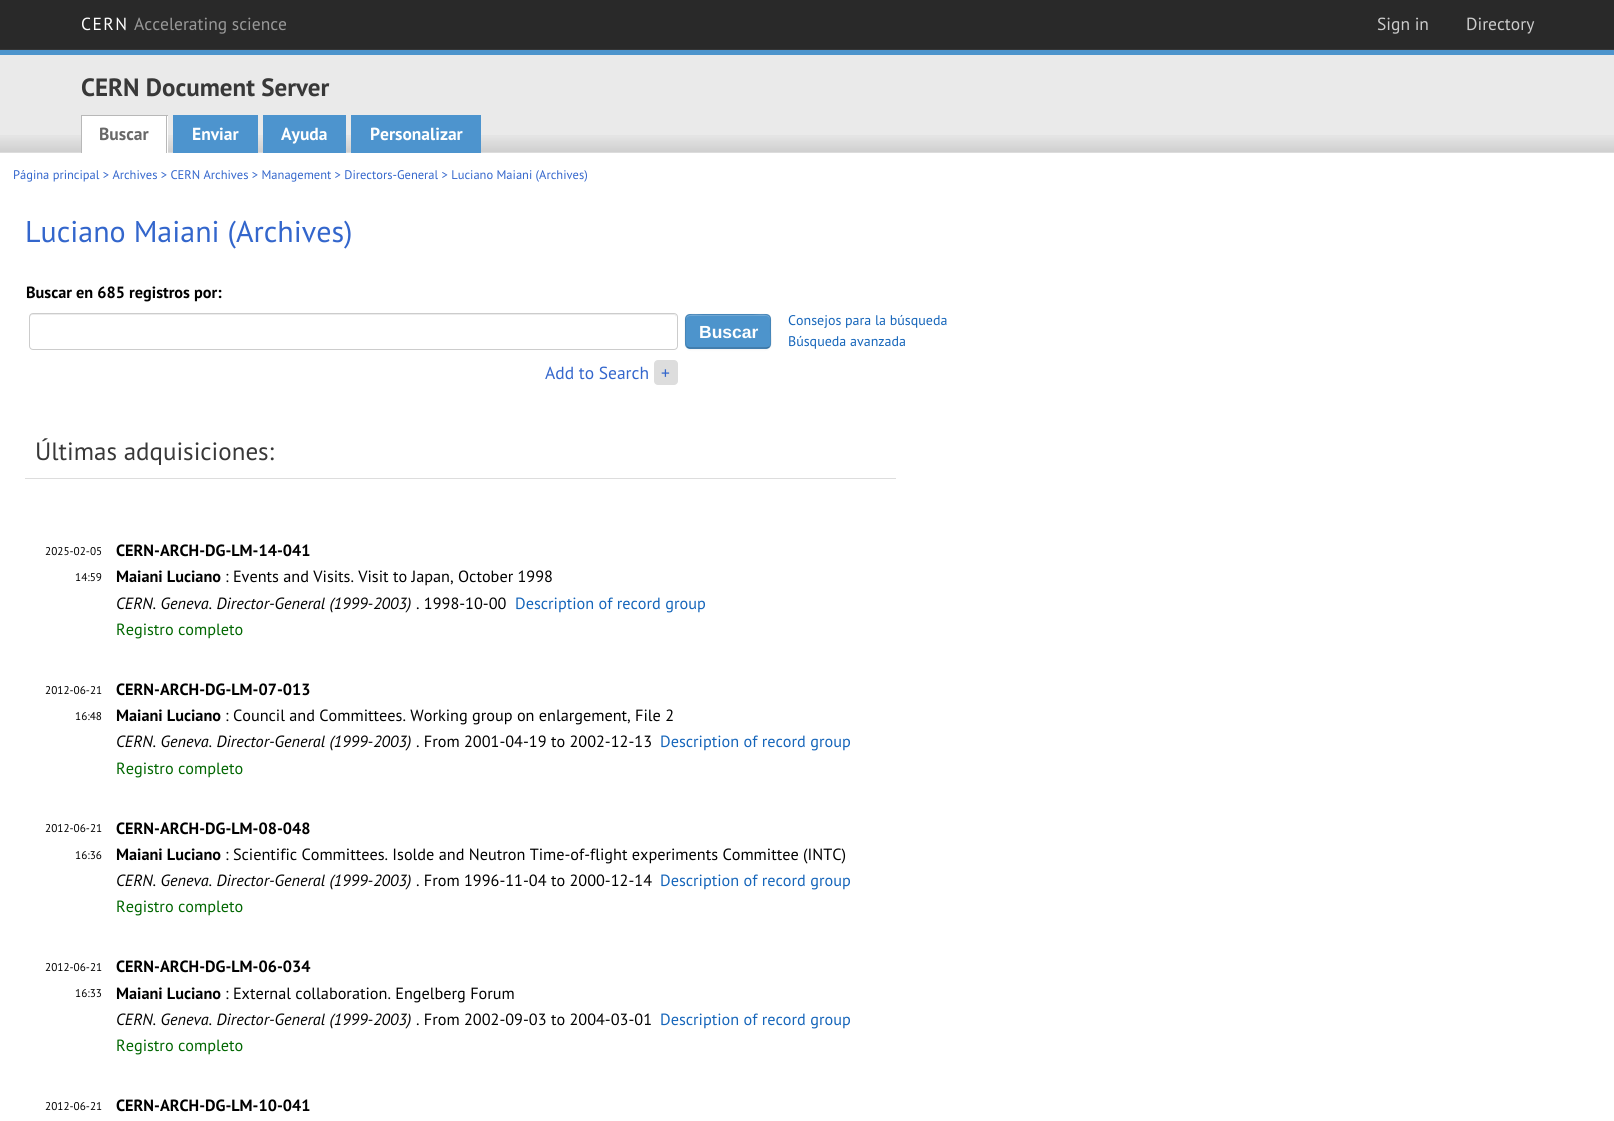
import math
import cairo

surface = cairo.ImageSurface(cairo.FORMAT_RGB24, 1614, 1121)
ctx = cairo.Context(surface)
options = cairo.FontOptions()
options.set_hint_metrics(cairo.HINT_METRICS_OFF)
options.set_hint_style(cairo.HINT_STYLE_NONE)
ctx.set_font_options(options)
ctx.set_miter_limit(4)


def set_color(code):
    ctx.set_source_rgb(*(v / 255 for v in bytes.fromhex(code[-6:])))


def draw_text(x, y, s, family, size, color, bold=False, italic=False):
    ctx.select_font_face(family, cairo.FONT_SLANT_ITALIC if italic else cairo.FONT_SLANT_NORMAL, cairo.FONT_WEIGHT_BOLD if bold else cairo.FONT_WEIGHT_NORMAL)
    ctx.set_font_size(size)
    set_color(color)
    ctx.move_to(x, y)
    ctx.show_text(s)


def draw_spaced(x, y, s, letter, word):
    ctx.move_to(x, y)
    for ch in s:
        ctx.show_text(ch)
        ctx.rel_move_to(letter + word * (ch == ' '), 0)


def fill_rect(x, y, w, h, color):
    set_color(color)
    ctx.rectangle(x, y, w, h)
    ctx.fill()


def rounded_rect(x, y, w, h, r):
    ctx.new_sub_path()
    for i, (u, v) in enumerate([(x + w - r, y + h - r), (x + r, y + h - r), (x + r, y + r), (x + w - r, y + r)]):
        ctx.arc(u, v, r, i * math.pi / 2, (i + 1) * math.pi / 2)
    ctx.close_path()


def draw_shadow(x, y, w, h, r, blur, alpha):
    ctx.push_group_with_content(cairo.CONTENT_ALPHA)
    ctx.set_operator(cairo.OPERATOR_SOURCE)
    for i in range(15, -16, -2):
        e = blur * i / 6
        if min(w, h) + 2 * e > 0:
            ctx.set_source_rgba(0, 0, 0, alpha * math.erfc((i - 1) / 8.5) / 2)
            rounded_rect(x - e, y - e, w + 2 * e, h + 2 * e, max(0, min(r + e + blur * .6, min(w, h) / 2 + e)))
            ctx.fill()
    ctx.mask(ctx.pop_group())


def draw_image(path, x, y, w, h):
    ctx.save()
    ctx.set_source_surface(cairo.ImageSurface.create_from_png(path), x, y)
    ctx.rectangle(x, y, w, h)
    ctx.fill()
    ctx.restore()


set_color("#ffffff")
ctx.paint()
fill_rect(0, 0, 1614, 49, "#292929")
fill_rect(0, 49, 1614, 1, "#353535")
ctx.select_font_face("PT Sans")
ctx.set_font_size(17.5)
set_color("#ffffff")
draw_spaced(81, 30, "CERN", 1.5, 0)
draw_text(134, 30, "Accelerating science", "PT Sans", 17.5, "#999999")
draw_text(1377, 30, "Sign in", "PT Sans", 17.5, "#cccccc")
draw_text(1466, 30, "Directory", "PT Sans", 17.5, "#cccccc")
fill_rect(0, 55, 1614, 98, "#eaeaea")
draw_image("assets/img1.png", 0, 135, 1614, 18)
fill_rect(0, 50, 1614, 5, "#4d94cc")
draw_text(81, 96, "CERN Document Server", "PT Sans", 25, "#383838", bold=True)
fill_rect(82, 116, 86, 37, "#ffffff")
fill_rect(81, 115, 87, 1, "#b8b8b8")
fill_rect(166, 115, 1, 38, "#b8b8b8")
fill_rect(81, 115, 1, 38, "#b8b8b8")
draw_text(99, 140, "Buscar", "PT Sans", 17.5, "#686868", bold=True)
fill_rect(173, 115, 85, 38, "#4d94ce")
draw_text(192, 140, "Enviar", "PT Sans", 17.5, "#ffffff", bold=True)
fill_rect(263, 115, 83, 38, "#4d94ce")
draw_text(281, 140, "Ayuda", "PT Sans", 17.5, "#ffffff", bold=True)
fill_rect(351, 115, 130, 38, "#4d94ce")
draw_text(370, 140, "Personalizar", "PT Sans", 17.5, "#ffffff", bold=True)
draw_text(13, 179, "Página principal > Archives > CERN Archives > Management > Directors-General > Luciano Maiani (Archives)", "PT Sans", 12.5, "#3366cc")
draw_text(25, 242, "Luciano Maiani (Archives)", "PT Sans", 30, "#3366cc")
draw_text(26, 298, "Buscar en 685 registros por:", "PT Sans", 16.25, "#000000", bold=True)
set_color("#ececec")
ctx.new_path()
ctx.move_to(32, 315)
ctx.line_to(674, 315)
ctx.curve_to(675, 315, 676, 316, 676, 318)
ctx.line_to(676, 316)
ctx.curve_to(676, 315, 675, 314, 674, 314)
ctx.line_to(32, 314)
ctx.curve_to(31, 314, 30, 315, 30, 316)
ctx.line_to(30, 318)
ctx.curve_to(30, 316, 31, 315, 32, 315)
ctx.close_path()
ctx.fill()
rounded_rect(29.5, 313.5, 648, 36, 3.5)
set_color("#cccccc")
ctx.set_line_width(1)
ctx.stroke()
set_color("#000000")
draw_shadow(685, 315, 86, 35, 5, 1, 0.05)
set_color("#4d94cc")
rounded_rect(685, 314, 86, 35, 5)
ctx.fill()
set_color("#71a9d6")
ctx.new_path()
ctx.move_to(690, 316)
ctx.line_to(766, 316)
ctx.curve_to(768, 316, 770, 318, 770, 320)
ctx.curve_to(770, 312, 758, 315, 753, 315)
ctx.line_to(703, 315)
ctx.curve_to(698, 315, 686, 312, 686, 320)
ctx.curve_to(686, 318, 688, 316, 690, 316)
ctx.close_path()
ctx.fill()
ctx.new_path()
ctx.move_to(769.5, 347)
ctx.line_to(766.5, 348)
ctx.line_to(689.5, 348)
ctx.line_to(687, 347)
ctx.set_source_rgba(0, 0, 0, 0.25)
ctx.set_line_width(1.2)
ctx.stroke()
ctx.new_path()
ctx.move_to(687, 347)
ctx.curve_to(684.5, 344.5, 685.5, 334.5, 685.5, 331)
ctx.curve_to(685.5, 312, 683, 314.5, 702.5, 314.5)
ctx.line_to(753.5, 314.5)
ctx.curve_to(773, 314.5, 770.5, 312, 770.5, 331)
ctx.curve_to(770.5, 334.5, 772, 344.5, 769.5, 347)
ctx.set_source_rgba(0, 0, 0, 0.1)
ctx.stroke()
draw_text(699, 338, "Buscar", "Liberation Sans", 17.5, "#ffffff", bold=True)
draw_text(788, 325, "Consejos para la búsqueda", "PT Sans", 14, "#1565ba")
draw_text(788, 346, "Búsqueda avanzada", "PT Sans", 14, "#1565ba")
draw_text(545, 379, "Add to Search", "PT Sans", 17.5, "#3366cc")
set_color("#dddddd")
rounded_rect(654, 360, 24, 25, 4)
ctx.fill()
draw_text(661, 379, "+", "PT Sans", 17.5, "#3366cc")
fill_rect(25, 478, 871, 1, "#dddddd")
draw_text(35, 460, "Últimas adquisiciones:", "PT Sans", 25, "#383838")
draw_text(45, 555, "2025-02-05", "PT Sans", 11.25, "#000000")
draw_text(75, 581, "14:59", "PT Sans", 11.25, "#000000")
draw_text(116, 556, "CERN-ARCH-DG-LM-14-041", "PT Sans", 16.25, "#000000", bold=True)
draw_text(116, 582, "Maiani Luciano", "PT Sans", 16.25, "#000000", bold=True)
draw_text(225, 582, ": Events and Visits. Visit to Japan, October 1998", "PT Sans", 16.25, "#000000")
draw_text(116, 609, "CERN. Geneva. Director-General (1999-2003)", "PT Sans", 16.25, "#000000", italic=True)
draw_text(416, 609, ". 1998-10-00", "PT Sans", 16.25, "#000000")
draw_text(515, 609, "Description of record group", "PT Sans", 16.25, "#1565ba")
draw_text(116, 635, "Registro completo", "PT Sans", 16.25, "#006600")
draw_text(45, 694, "2012-06-21", "PT Sans", 11.25, "#000000")
draw_text(75, 720, "16:48", "PT Sans", 11.25, "#000000")
draw_text(116, 695, "CERN-ARCH-DG-LM-07-013", "PT Sans", 16.25, "#000000", bold=True)
draw_text(116, 721, "Maiani Luciano", "PT Sans", 16.25, "#000000", bold=True)
draw_text(225, 721, ": Council and Committees. Working group on enlargement, File 2", "PT Sans", 16.25, "#000000")
draw_text(116, 747, "CERN. Geneva. Director-General (1999-2003)", "PT Sans", 16.25, "#000000", italic=True)
draw_text(416, 747, ". From 2001-04-19 to 2002-12-13", "PT Sans", 16.25, "#000000")
draw_text(660, 747, "Description of record group", "PT Sans", 16.25, "#1565ba")
draw_text(116, 774, "Registro completo", "PT Sans", 16.25, "#006600")
draw_text(45, 832, "2012-06-21", "PT Sans", 11.25, "#000000")
draw_text(75, 859, "16:36", "PT Sans", 11.25, "#000000")
draw_text(116, 834, "CERN-ARCH-DG-LM-08-048", "PT Sans", 16.25, "#000000", bold=True)
draw_text(116, 860, "Maiani Luciano", "PT Sans", 16.25, "#000000", bold=True)
draw_text(225, 860, ": Scientific Committees. Isolde and Neutron Time-of-flight experiments Committee (INTC)", "PT Sans", 16.25, "#000000")
draw_text(116, 886, "CERN. Geneva. Director-General (1999-2003)", "PT Sans", 16.25, "#000000", italic=True)
draw_text(416, 886, ". From 1996-11-04 to 2000-12-14", "PT Sans", 16.25, "#000000")
draw_text(660, 886, "Description of record group", "PT Sans", 16.25, "#1565ba")
draw_text(116, 912, "Registro completo", "PT Sans", 16.25, "#006600")
draw_text(45, 971, "2012-06-21", "PT Sans", 11.25, "#000000")
draw_text(75, 997, "16:33", "PT Sans", 11.25, "#000000")
draw_text(116, 972, "CERN-ARCH-DG-LM-06-034", "PT Sans", 16.25, "#000000", bold=True)
draw_text(116, 999, "Maiani Luciano", "PT Sans", 16.25, "#000000", bold=True)
draw_text(225, 999, ": External collaboration. Engelberg Forum", "PT Sans", 16.25, "#000000")
draw_text(116, 1025, "CERN. Geneva. Director-General (1999-2003)", "PT Sans", 16.25, "#000000", italic=True)
draw_text(416, 1025, ". From 2002-09-03 to 2004-03-01", "PT Sans", 16.25, "#000000")
draw_text(660, 1025, "Description of record group", "PT Sans", 16.25, "#1565ba")
draw_text(116, 1051, "Registro completo", "PT Sans", 16.25, "#006600")
draw_text(45, 1110, "2012-06-21", "PT Sans", 11.25, "#000000")
draw_text(116, 1111, "CERN-ARCH-DG-LM-10-041", "PT Sans", 16.25, "#000000", bold=True)
surface.write_to_png("output.png")
